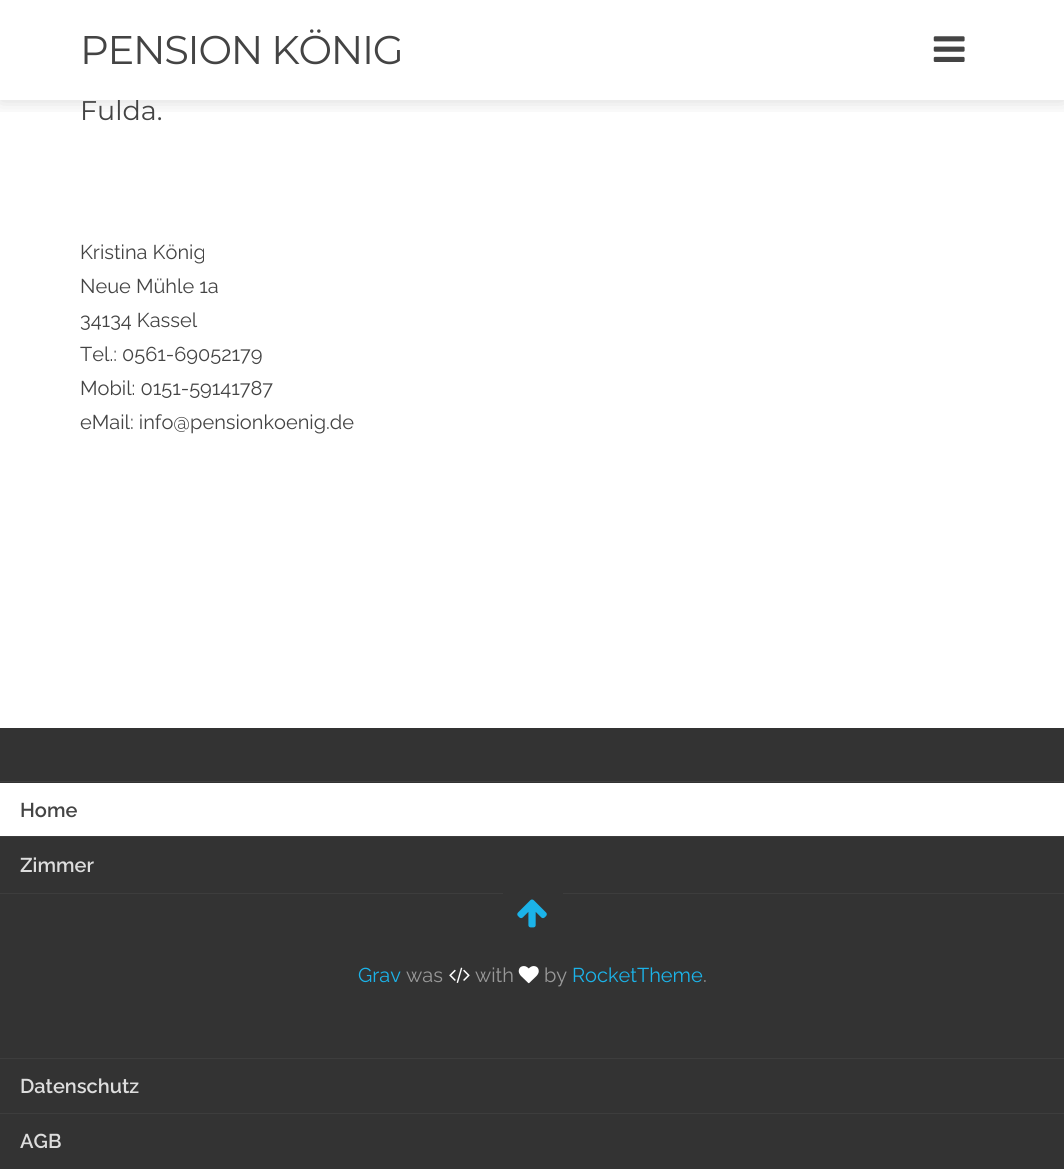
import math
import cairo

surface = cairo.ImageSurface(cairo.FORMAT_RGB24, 1064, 1169)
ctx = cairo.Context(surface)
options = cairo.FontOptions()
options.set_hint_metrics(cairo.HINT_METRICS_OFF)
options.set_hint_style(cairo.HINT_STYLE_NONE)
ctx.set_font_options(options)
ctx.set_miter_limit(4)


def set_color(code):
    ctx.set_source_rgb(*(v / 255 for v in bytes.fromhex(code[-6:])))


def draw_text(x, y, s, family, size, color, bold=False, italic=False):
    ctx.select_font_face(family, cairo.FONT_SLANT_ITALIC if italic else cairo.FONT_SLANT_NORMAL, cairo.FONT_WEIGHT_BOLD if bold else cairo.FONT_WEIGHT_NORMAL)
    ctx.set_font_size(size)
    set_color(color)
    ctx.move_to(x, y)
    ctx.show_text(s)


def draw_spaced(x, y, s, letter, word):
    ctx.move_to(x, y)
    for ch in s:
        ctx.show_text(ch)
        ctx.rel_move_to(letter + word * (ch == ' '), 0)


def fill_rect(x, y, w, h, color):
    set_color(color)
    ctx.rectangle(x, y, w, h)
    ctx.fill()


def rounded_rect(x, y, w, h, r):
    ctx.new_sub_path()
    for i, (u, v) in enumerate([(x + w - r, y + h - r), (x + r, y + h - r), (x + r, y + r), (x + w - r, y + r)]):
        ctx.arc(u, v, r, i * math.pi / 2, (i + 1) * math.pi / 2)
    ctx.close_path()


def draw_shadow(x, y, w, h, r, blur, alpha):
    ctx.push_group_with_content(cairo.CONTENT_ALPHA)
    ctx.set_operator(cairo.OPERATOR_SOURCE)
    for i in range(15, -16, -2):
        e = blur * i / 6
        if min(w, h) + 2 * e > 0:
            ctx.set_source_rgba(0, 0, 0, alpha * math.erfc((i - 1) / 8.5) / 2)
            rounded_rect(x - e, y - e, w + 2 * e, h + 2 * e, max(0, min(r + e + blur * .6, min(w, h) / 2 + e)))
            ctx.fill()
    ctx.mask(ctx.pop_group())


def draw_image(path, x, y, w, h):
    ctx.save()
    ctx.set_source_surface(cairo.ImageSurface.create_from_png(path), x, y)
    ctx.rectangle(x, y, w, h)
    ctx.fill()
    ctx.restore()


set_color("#ffffff")
ctx.paint()
fill_rect(0, 728, 1064, 441, "#333333")
fill_rect(0, 781, 1064, 1, "#3d3d3d")
fill_rect(0, 836, 1064, 1, "#3d3d3d")
fill_rect(0, 783, 1064, 53, "#ffffff")
draw_text(20, 817, "Home", "Raleway SemiBold", 20, "#444444")
fill_rect(0, 893, 1064, 1, "#3d3d3d")
draw_text(20, 872, "Zimmer", "Raleway SemiBold", 20, "#dddddd")
fill_rect(0, 1058, 1064, 1, "#3d3d3d")
fill_rect(0, 1113, 1064, 1, "#3d3d3d")
draw_text(20, 1093, "Datenschutz", "Raleway SemiBold", 20, "#dddddd")
draw_text(20, 1148, "AGB", "Raleway SemiBold", 20, "#dddddd")
ctx.save()
ctx.rectangle(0, 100, 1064, 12)
ctx.clip()
set_color("#000000")
draw_shadow(0, 1, 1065, 100, 0, 10, 0.15)
ctx.restore()
draw_text(80, 120, "Fulda.", "Montserrat", 27, "#444444")
ctx.set_source_rgba(1, 1, 1, 0.9)
ctx.rectangle(118, 99, 20, 1)
ctx.fill()
ctx.set_font_size(40)
set_color("#444444")
draw_spaced(80, 64, "PENSION KÖNIG", -1.25, 0)
draw_image("assets/img1.png", 933, 36, 32, 26)
draw_text(80, 259, "Kristina König", "Raleway", 20, "#444444")
draw_text(80, 293, "Neue Mühle 1a", "Raleway", 20, "#444444")
draw_text(80, 327, "34134 Kassel", "Raleway", 20, "#444444")
draw_text(80, 361, "Tel.: 0561-69052179", "Raleway", 20, "#444444")
draw_text(80, 395, "Mobil: 0151-59141787", "Raleway", 20, "#444444")
draw_text(80, 429, "eMail: info@pensionkoenig.de", "Raleway", 20, "#444444")
set_color("#333333")
rounded_rect(503, 888, 60, 40, 4)
ctx.fill()
draw_image("assets/img2.png", 517, 899, 30, 29)
draw_text(358, 982, "Grav", "Raleway", 20, "#1bb3e9")
draw_text(406, 982, "was", "Raleway", 20, "#999999")
draw_image("assets/img3.png", 449, 967, 21, 16)
draw_text(475, 982, "with", "Raleway", 20, "#999999")
draw_image("assets/img4.png", 518, 966, 21, 18)
draw_text(544, 982, "by", "Raleway", 20, "#999999")
draw_text(572, 982, "RocketTheme", "Raleway", 20, "#1bb3e9")
draw_text(703, 982, ".", "Raleway", 20, "#999999")
surface.write_to_png("output.png")
